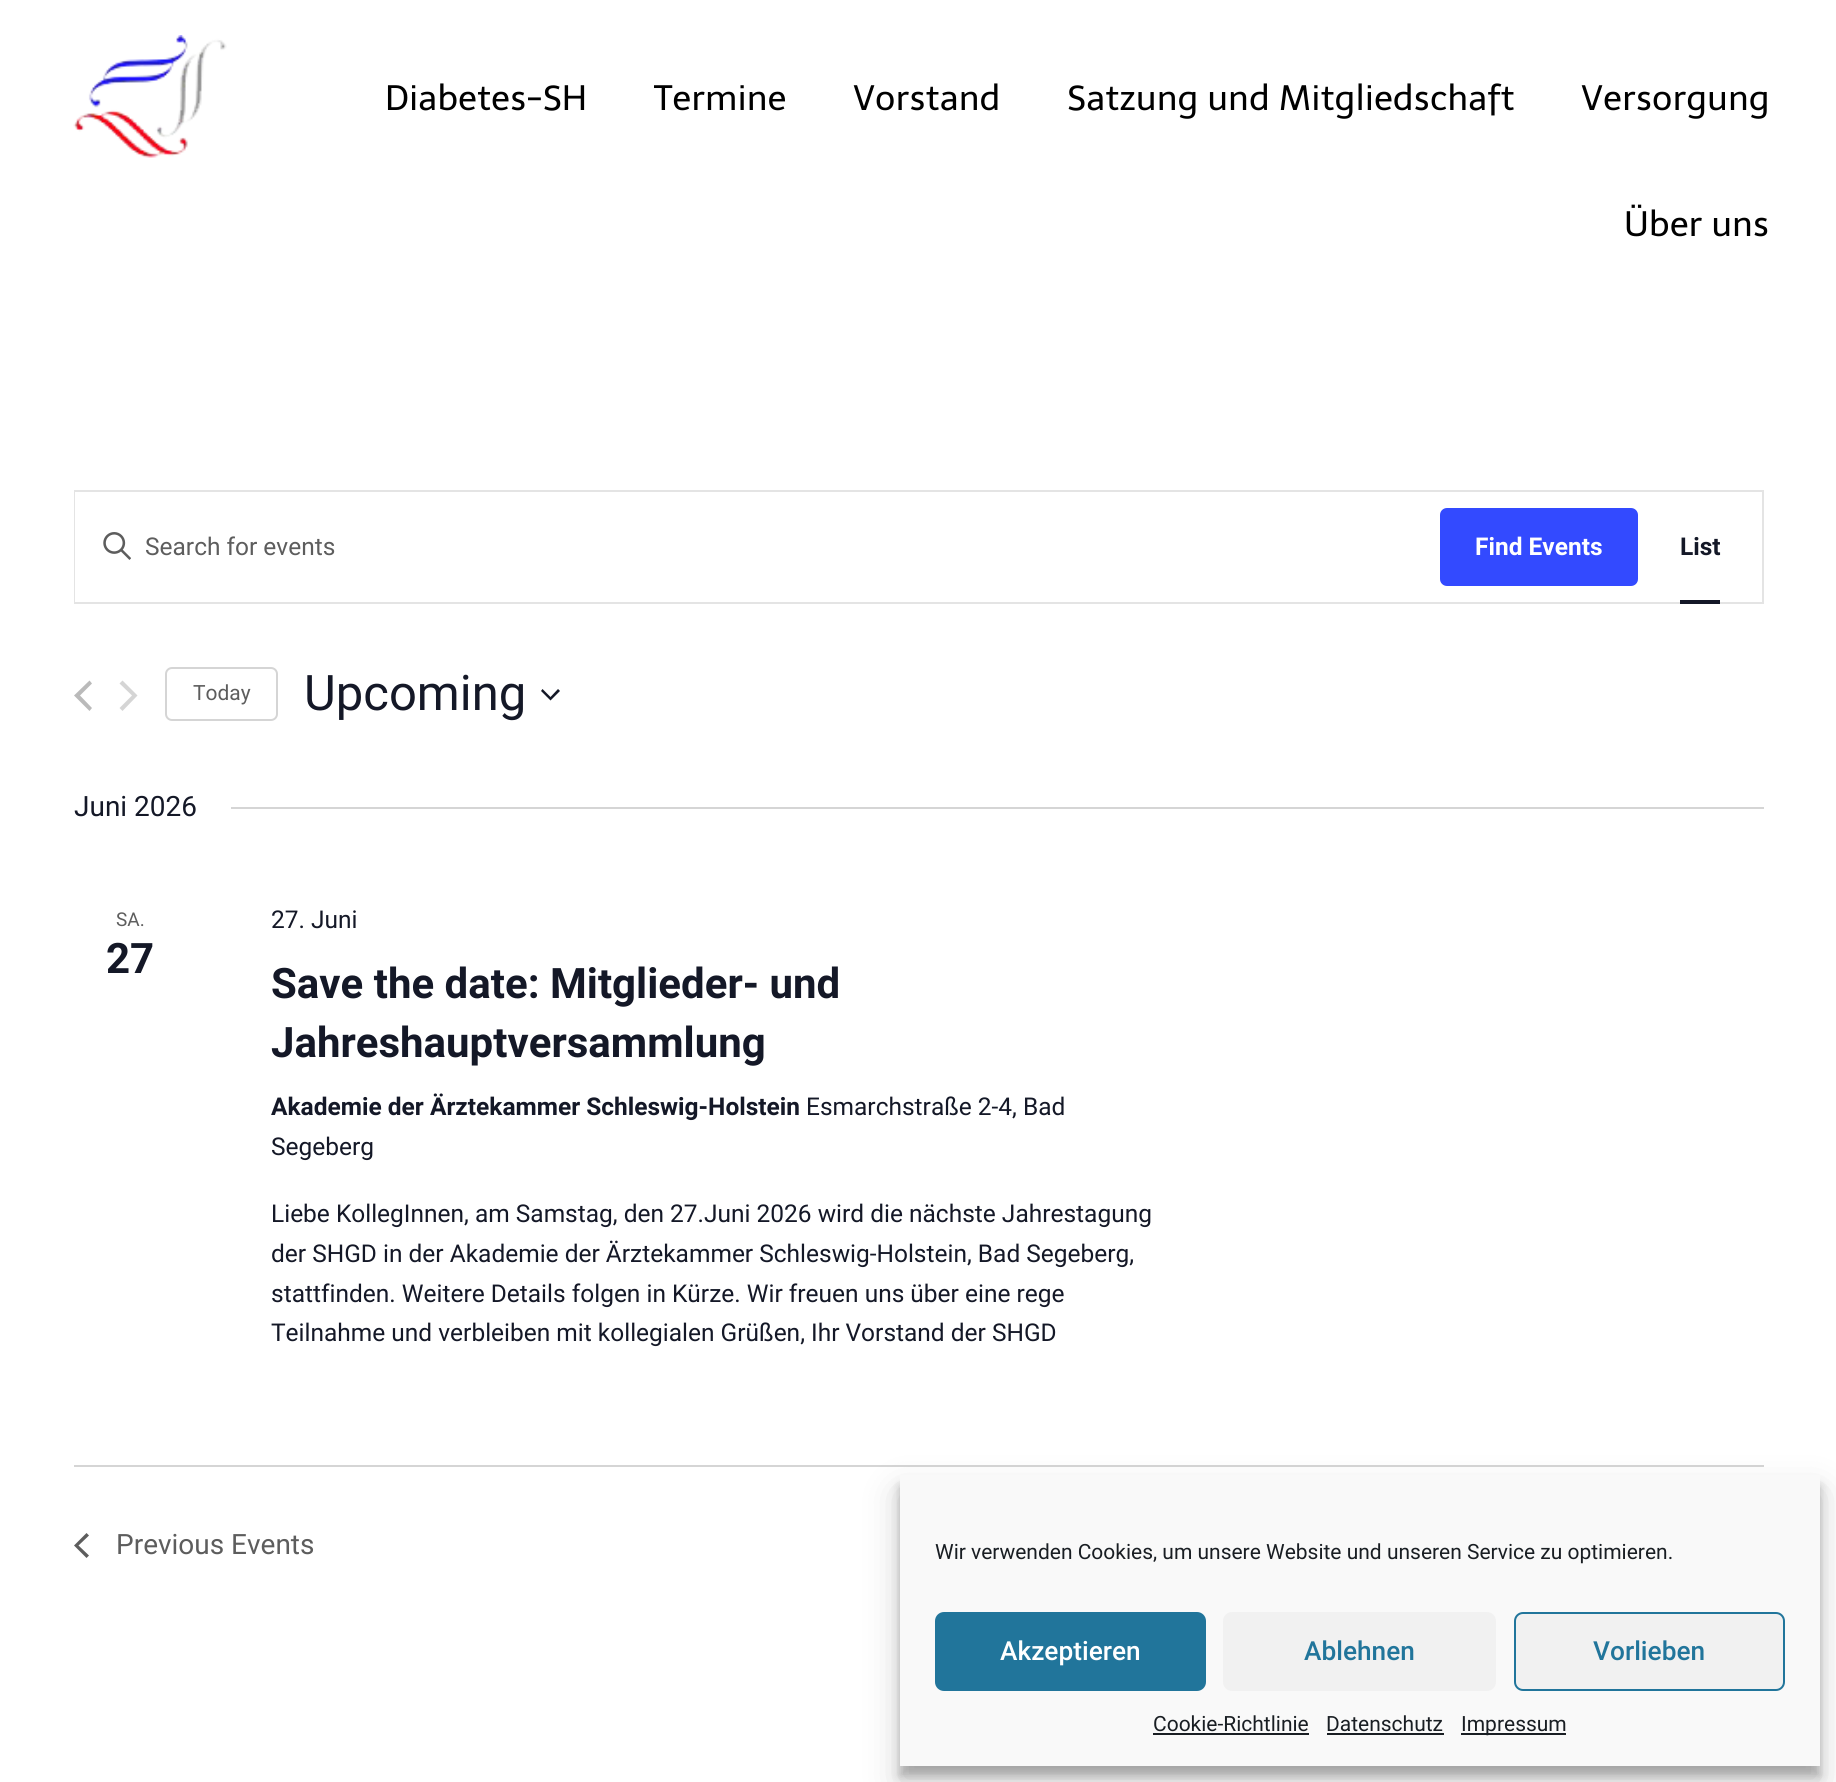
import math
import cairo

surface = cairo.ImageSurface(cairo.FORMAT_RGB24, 1836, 1782)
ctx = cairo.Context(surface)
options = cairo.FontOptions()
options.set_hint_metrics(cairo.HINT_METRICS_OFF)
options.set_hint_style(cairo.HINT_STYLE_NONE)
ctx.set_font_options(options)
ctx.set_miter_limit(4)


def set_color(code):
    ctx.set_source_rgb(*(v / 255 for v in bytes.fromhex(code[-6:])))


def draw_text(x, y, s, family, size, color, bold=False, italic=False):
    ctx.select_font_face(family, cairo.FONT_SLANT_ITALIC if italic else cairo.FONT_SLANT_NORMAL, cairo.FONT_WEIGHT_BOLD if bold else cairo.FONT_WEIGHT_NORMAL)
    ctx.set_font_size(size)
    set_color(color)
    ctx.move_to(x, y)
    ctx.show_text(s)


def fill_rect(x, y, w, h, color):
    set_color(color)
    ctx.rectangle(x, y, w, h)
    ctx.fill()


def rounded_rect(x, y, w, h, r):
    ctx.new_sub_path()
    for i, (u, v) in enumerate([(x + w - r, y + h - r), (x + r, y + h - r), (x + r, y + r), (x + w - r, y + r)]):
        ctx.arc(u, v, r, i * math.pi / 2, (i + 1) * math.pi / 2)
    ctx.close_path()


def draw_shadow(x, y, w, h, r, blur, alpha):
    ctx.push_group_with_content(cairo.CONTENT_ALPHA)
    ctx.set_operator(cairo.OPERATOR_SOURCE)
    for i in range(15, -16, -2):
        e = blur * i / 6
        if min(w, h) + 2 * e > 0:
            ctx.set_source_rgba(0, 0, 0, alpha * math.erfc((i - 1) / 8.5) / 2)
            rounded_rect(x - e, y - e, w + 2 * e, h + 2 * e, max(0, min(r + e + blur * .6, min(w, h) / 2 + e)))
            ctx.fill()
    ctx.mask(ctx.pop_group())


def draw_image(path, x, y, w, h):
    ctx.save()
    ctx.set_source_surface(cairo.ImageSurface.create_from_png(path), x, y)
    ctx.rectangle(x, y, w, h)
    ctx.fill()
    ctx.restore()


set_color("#ffffff")
ctx.paint()
draw_image("assets/img1.png", 73, 35, 154, 123)
draw_text(385, 110, "Diabetes-SH", "Telex", 35, "#000000")
draw_text(654, 110, "Termine", "Telex", 35, "#000000")
draw_text(853, 110, "Vorstand", "Telex", 35, "#000000")
draw_text(1067, 110, "Satzung und Mitgliedschaft", "Telex", 35, "#000000")
draw_text(1581, 110, "Versorgung", "Telex", 35, "#000000")
draw_text(1624, 236, "Über uns", "Telex", 35, "#000000")
ctx.rectangle(75, 491, 1688, 112)
set_color("#e4e4e4")
ctx.stroke()
fill_rect(75, 492, 1, 110, "#ffffff")
draw_image("assets/img2.png", 103, 532, 28, 28)
draw_text(145, 555, "Search for events", "Roboto", 24.5, "#5d5d5d")
set_color("#334aff")
rounded_rect(1440, 508, 198, 78, 7)
ctx.fill()
draw_text(1475, 555, "Find Events", "Roboto", 24.5, "#ffffff", bold=True)
draw_text(1680, 555, "List", "Roboto", 24.5, "#141827", bold=True)
fill_rect(1680, 600, 40, 4, "#141827")
set_color("#bababa")
ctx.new_path()
ctx.move_to(92, 708)
ctx.line_to(89.5, 711)
ctx.line_to(74, 695.5)
ctx.line_to(89.5, 680.5)
ctx.line_to(92, 683.5)
ctx.line_to(80, 695.5)
ctx.close_path()
ctx.fill()
set_color("#d5d5d5")
ctx.new_path()
ctx.move_to(119.5, 683.5)
ctx.line_to(122.5, 680.5)
ctx.line_to(137.5, 695.5)
ctx.line_to(122.5, 711)
ctx.line_to(119.5, 708)
ctx.line_to(132, 695.5)
ctx.close_path()
ctx.fill()
rounded_rect(166, 668, 111, 52, 6)
ctx.stroke()
draw_text(193, 700, "Today", "Roboto", 21, "#5d5d5d")
draw_text(304, 710, "Upcoming", "Roboto", 49, "#141827")
ctx.set_fill_rule(cairo.FILL_RULE_EVEN_ODD)
ctx.new_path()
ctx.move_to(542.5, 689)
ctx.line_to(550.5, 697)
ctx.line_to(558, 689)
ctx.line_to(560, 691)
ctx.line_to(550.5, 700.5)
ctx.line_to(541, 691)
ctx.close_path()
ctx.fill()
draw_text(74, 816, "Juni 2026", "Roboto", 28, "#141827")
fill_rect(231, 807, 1533, 2, "#d5d5d5")
draw_text(116, 926, "SA.", "Roboto", 19, "#5d5d5d")
draw_text(106, 973, "27", "Roboto", 42, "#141827", bold=True)
draw_text(271, 928, "27. Juni", "Roboto", 24.5, "#141827")
draw_text(271, 998, "Save the date: Mitglieder- und", "Roboto", 42, "#141827", bold=True)
draw_text(271, 1057, "Jahreshauptversammlung", "Roboto", 42, "#141827", bold=True)
draw_text(271, 1115, "Akademie der Ärztekammer Schleswig-Holstein", "Roboto", 24.5, "#141827", bold=True)
draw_text(806, 1115, "Esmarchstraße 2-4, Bad", "Roboto", 24.5, "#141827")
draw_text(271, 1155, "Segeberg", "Roboto", 24.5, "#141827")
draw_text(271, 1222, "Liebe KollegInnen, am Samstag, den 27.Juni 2026 wird die nächste Jahrestagung", "Roboto", 24.5, "#141827")
draw_text(271, 1262, "der SHGD in der Akademie der Ärztekammer Schleswig-Holstein, Bad Segeberg,", "Roboto", 24.5, "#141827")
draw_text(271, 1302, "stattfinden. Weitere Details folgen in Kürze. Wir freuen uns über eine rege", "Roboto", 24.5, "#141827")
draw_text(271, 1341, "Teilnahme und verbleiben mit kollegialen Grüßen, Ihr Vorstand der SHGD", "Roboto", 24.5, "#141827")
fill_rect(74, 1465, 1690, 2, "#d5d5d5")
set_color("#5d5d5d")
ctx.set_fill_rule(cairo.FILL_RULE_WINDING)
ctx.new_path()
ctx.move_to(89, 1555.5)
ctx.line_to(86.5, 1558)
ctx.line_to(74, 1545.5)
ctx.line_to(86.5, 1533)
ctx.line_to(89, 1535.5)
ctx.line_to(78.5, 1545.5)
ctx.close_path()
ctx.fill()
draw_text(116, 1554, "Previous Events", "Roboto", 28, "#5d5d5d")
set_color("#000000")
draw_shadow(900, 1486, 920, 290, 0, 5, 0.23)
draw_shadow(900, 1493, 920, 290, 0, 17.5, 0.19)
fill_rect(900, 1475, 920, 291, "#f9f9f9")
draw_text(935, 1559, "Wir verwenden Cookies, um unsere Website und unseren Service zu optimieren.", "Roboto", 21, "#191e23")
set_color("#21759b")
rounded_rect(936, 1613, 269, 77, 8)
ctx.fill_preserve()
ctx.stroke()
draw_text(1000, 1660, "Akzeptieren", "Roboto Medium", 26.25, "#ffffff")
set_color("#f1f1f1")
rounded_rect(1223, 1612, 273, 79, 9)
ctx.fill()
draw_text(1304, 1660, "Ablehnen", "Roboto Medium", 26.25, "#21759b")
set_color("#f1f1f1")
rounded_rect(1515, 1613, 269, 77, 8)
ctx.fill_preserve()
set_color("#21759b")
ctx.stroke()
draw_text(1593, 1660, "Vorlieben", "Roboto Medium", 26.25, "#21759b")
draw_text(1153, 1731, "Cookie-Richtlinie", "Roboto", 21, "#191e23")
fill_rect(1153, 1733, 156, 2, "#191e23")
draw_text(1326, 1731, "Datenschutz", "Roboto", 21, "#191e23")
fill_rect(1327, 1733, 117, 2, "#191e23")
fill_rect(1461, 1733, 105, 2, "#191e23")
draw_text(1461, 1731, "Impressum", "Roboto", 21, "#191e23")
surface.write_to_png("output.png")
